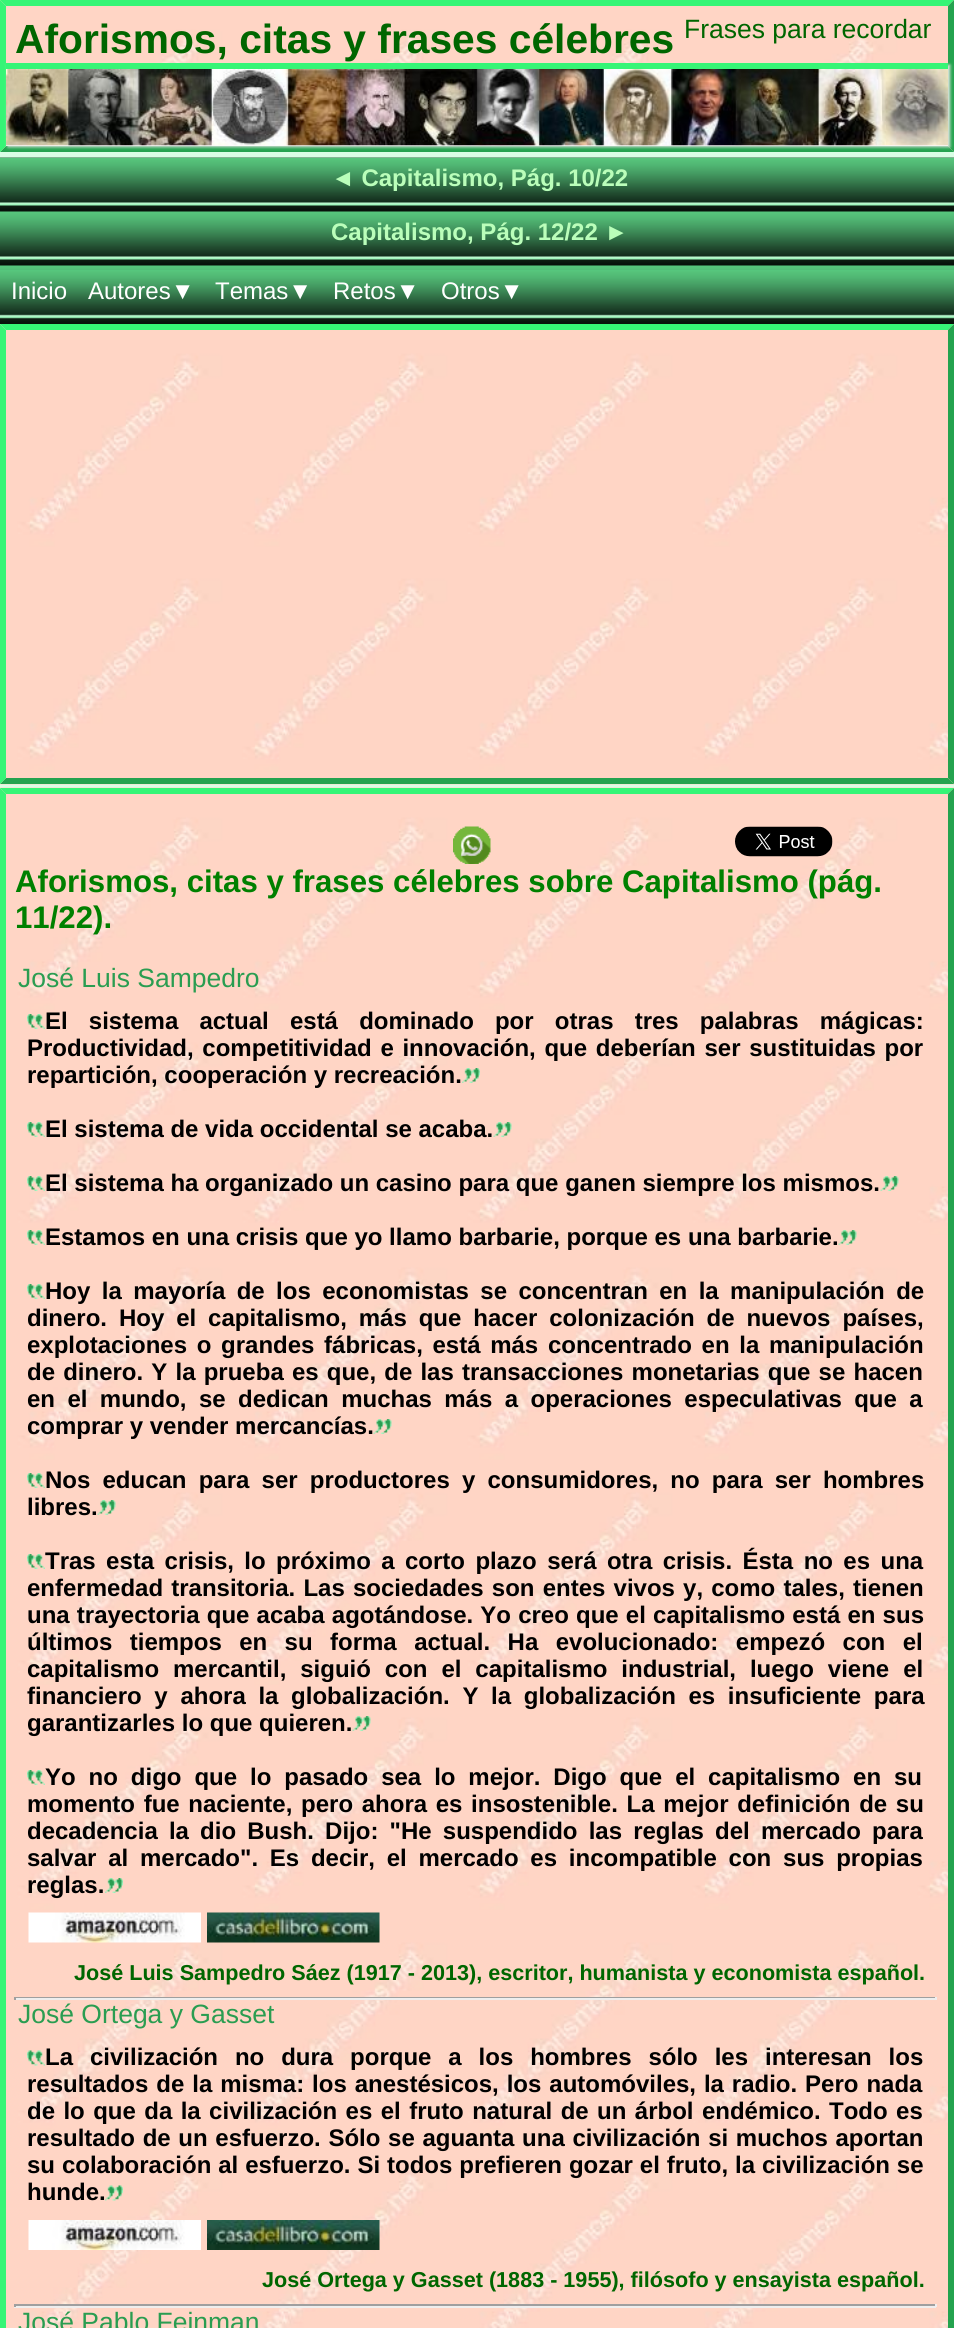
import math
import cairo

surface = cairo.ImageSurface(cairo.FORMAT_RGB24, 954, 2328)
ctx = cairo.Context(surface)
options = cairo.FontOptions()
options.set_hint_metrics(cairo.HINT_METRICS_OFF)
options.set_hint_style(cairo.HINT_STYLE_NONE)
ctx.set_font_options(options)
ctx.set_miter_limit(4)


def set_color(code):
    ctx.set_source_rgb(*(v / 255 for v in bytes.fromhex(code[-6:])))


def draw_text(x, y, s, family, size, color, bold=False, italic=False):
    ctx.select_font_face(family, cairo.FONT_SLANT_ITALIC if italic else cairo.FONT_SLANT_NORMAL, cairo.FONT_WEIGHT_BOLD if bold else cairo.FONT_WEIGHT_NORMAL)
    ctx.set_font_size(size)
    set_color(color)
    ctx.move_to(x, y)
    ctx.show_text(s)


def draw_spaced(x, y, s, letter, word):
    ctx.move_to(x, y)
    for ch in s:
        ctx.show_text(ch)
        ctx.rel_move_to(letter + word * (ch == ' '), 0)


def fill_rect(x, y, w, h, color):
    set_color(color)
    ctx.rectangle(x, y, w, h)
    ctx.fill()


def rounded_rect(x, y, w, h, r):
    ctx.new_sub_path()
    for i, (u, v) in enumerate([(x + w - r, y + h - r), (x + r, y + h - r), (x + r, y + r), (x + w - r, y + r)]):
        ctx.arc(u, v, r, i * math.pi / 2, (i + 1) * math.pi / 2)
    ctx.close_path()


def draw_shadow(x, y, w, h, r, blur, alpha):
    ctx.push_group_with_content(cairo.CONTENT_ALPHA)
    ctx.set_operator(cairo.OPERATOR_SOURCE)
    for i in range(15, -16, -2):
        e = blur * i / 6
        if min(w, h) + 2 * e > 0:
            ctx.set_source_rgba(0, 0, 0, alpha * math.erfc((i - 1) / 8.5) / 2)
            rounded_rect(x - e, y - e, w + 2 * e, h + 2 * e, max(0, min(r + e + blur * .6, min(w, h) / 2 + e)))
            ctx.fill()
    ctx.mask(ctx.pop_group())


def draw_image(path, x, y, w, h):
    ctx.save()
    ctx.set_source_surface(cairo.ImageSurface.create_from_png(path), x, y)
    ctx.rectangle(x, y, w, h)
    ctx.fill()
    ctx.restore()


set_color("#d9fee5")
ctx.paint()
draw_image("assets/img1.png", 0, 0, 954, 152)
set_color("#36f576")
ctx.new_path()
ctx.move_to(0, 0)
ctx.line_to(954, 0)
ctx.line_to(948, 6)
ctx.line_to(6, 6)
ctx.close_path()
ctx.fill()
set_color("#24a34f")
ctx.new_path()
ctx.move_to(954, 0)
ctx.line_to(954, 152)
ctx.line_to(948, 146)
ctx.line_to(948, 6)
ctx.close_path()
ctx.fill()
ctx.new_path()
ctx.move_to(954, 152)
ctx.line_to(0, 152)
ctx.line_to(6, 146)
ctx.line_to(948, 146)
ctx.close_path()
ctx.fill()
set_color("#36f576")
ctx.new_path()
ctx.move_to(0, 152)
ctx.line_to(0, 0)
ctx.line_to(6, 6)
ctx.line_to(6, 146)
ctx.close_path()
ctx.fill()
draw_text(15, 53, "Aforismos, citas y frases célebres", "Liberation Sans", 40.75, "#006600", bold=True)
draw_text(684, 38, "Frases para recordar", "Liberation Sans", 26.5, "#006600")
set_color("#e6e6e6")
draw_shadow(8, 65, 942, 82, 0, 1.5, 1)
fill_rect(6, 145, 942, 1, "#ffffff")
draw_image("assets/img2.png", 6, 145, 942, 1)
fill_rect(6, 63, 942, 6, "#36f576")
draw_image("assets/img3.png", 6, 69, 942, 77)
draw_image("assets/img4.png", 0, 157, 954, 113)
draw_text(331, 186, "◄ Capitalismo, Pág. 10/22", "Liberation Sans", 24, "#bafeba", bold=True)
draw_text(331, 240, "Capitalismo, Pág. 12/22 ►", "Liberation Sans", 24, "#bafeba", bold=True)
draw_image("assets/img5.png", 0, 270, 954, 54)
draw_text(11, 299, "Inicio", "Liberation Sans", 24, "#ffffff")
draw_text(88, 299, "Autores▼", "Liberation Sans", 24, "#ffffff")
draw_text(215, 299, "Temas▼", "Liberation Sans", 24, "#ffffff")
draw_text(333, 299, "Retos▼", "Liberation Sans", 24, "#ffffff")
draw_text(441, 299, "Otros▼", "Liberation Sans", 24, "#ffffff")
draw_image("assets/img6.png", 0, 324, 954, 461)
set_color("#36f576")
ctx.new_path()
ctx.move_to(0, 324)
ctx.line_to(954, 324)
ctx.line_to(948, 330)
ctx.line_to(6, 330)
ctx.close_path()
ctx.fill()
set_color("#24a34f")
ctx.new_path()
ctx.move_to(954, 324)
ctx.line_to(954, 784)
ctx.line_to(948, 778)
ctx.line_to(948, 330)
ctx.close_path()
ctx.fill()
ctx.new_path()
ctx.move_to(954, 784)
ctx.line_to(0, 784)
ctx.line_to(6, 778)
ctx.line_to(948, 778)
ctx.close_path()
ctx.fill()
set_color("#36f576")
ctx.new_path()
ctx.move_to(0, 784)
ctx.line_to(0, 324)
ctx.line_to(6, 330)
ctx.line_to(6, 778)
ctx.close_path()
ctx.fill()
draw_image("assets/img7.png", 0, 787, 954, 1541)
ctx.new_path()
ctx.move_to(0, 788)
ctx.line_to(954, 788)
ctx.line_to(948, 794)
ctx.line_to(6, 794)
ctx.close_path()
ctx.fill()
set_color("#24a34f")
ctx.new_path()
ctx.move_to(954, 788)
ctx.line_to(954, 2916)
ctx.line_to(948, 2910)
ctx.line_to(948, 794)
ctx.close_path()
ctx.fill()
set_color("#36f576")
ctx.new_path()
ctx.move_to(0, 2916)
ctx.line_to(0, 788)
ctx.line_to(6, 794)
ctx.line_to(6, 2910)
ctx.close_path()
ctx.fill()
draw_image("assets/img8.png", 453, 826, 38, 38)
draw_image("assets/img9.png", 735, 826, 98, 31)
draw_text(15, 892, "Aforismos, citas y frases célebres sobre Capitalismo (pág.", "Liberation Sans", 31.2, "#008000", bold=True)
draw_text(15, 928, "11/22).", "Liberation Sans", 31.2, "#008000", bold=True)
draw_text(18, 987, "José Luis Sampedro", "Liberation Sans", 26.5, "#2a9d51")
draw_image("assets/img10.png", 27, 1014, 18, 15)
ctx.select_font_face("Liberation Sans", cairo.FONT_SLANT_NORMAL, cairo.FONT_WEIGHT_BOLD)
ctx.set_font_size(24)
set_color("#000000")
draw_spaced(45, 1029, "El sistema actual está dominado por otras tres palabras mágicas:", 0, 14.5)
draw_spaced(27, 1056, "Productividad, competitividad e innovación, que deberían ser sustituidas por", 0, 2)
draw_text(27, 1083, "repartición, cooperación y recreación.", "Liberation Sans", 24, "#000000", bold=True)
draw_image("assets/img11.png", 462, 1068, 18, 15)
draw_image("assets/img10.png", 27, 1122, 18, 15)
draw_text(45, 1137, "El sistema de vida occidental se acaba.", "Liberation Sans", 24, "#000000", bold=True)
draw_image("assets/img12.png", 493, 1122, 19, 15)
draw_image("assets/img13.png", 27, 1176, 18, 15)
draw_text(45, 1191, "El sistema ha organizado un casino para que ganen siempre los mismos.", "Liberation Sans", 24, "#000000", bold=True)
draw_image("assets/img12.png", 880, 1176, 19, 15)
draw_image("assets/img14.png", 27, 1230, 18, 15)
draw_text(45, 1245, "Estamos en una crisis que yo llamo barbarie, porque es una barbarie.", "Liberation Sans", 24, "#000000", bold=True)
draw_image("assets/img12.png", 838, 1230, 19, 15)
draw_image("assets/img10.png", 27, 1284, 18, 15)
draw_spaced(45, 1299, "Hoy la mayoría de los economistas se concentran en la manipulación de", 0, 4.75)
draw_spaced(27, 1326, "dinero. Hoy el capitalismo, más que hacer colonización de nuevos países,", 0, 5.25)
draw_spaced(27, 1353, "explotaciones o grandes fábricas, está más concentrado en la manipulación", 0, 3)
draw_spaced(27, 1380, "de dinero. Y la prueba es que, de las transacciones monetarias que se hacen", 0, 1.5)
draw_spaced(27, 1407, "en el mundo, se dedican muchas más a operaciones especulativas que a", 0, 5.75)
draw_text(27, 1434, "comprar y vender mercancías.", "Liberation Sans", 24, "#000000", bold=True)
draw_image("assets/img15.png", 373, 1419, 19, 15)
draw_image("assets/img10.png", 27, 1473, 18, 15)
draw_spaced(45, 1488, "Nos educan para ser productores y consumidores, no para ser hombres", 0, 5.5)
draw_text(27, 1515, "libres.", "Liberation Sans", 24, "#000000", bold=True)
draw_image("assets/img12.png", 97, 1500, 19, 15)
draw_image("assets/img10.png", 27, 1554, 18, 15)
draw_spaced(45, 1569, "Tras esta crisis, lo próximo a corto plazo será otra crisis. Ésta no es una", 0, 3.75)
draw_spaced(27, 1596, "enfermedad transitoria. Las sociedades son entes vivos y, como tales, tienen", 0, 1.5)
draw_spaced(27, 1623, "una trayectoria que acaba agotándose. Yo creo que el capitalismo está en sus", 0, 0.5)
draw_spaced(27, 1650, "últimos tiempos en su forma actual. Ha evolucionado: empezó con el", 0, 10.75)
draw_spaced(27, 1677, "capitalismo mercantil, siguió con el capitalismo industrial, luego viene el", 0, 7.25)
draw_spaced(27, 1704, "financiero y ahora la globalización. Y la globalización es insuficiente para", 0, 6)
draw_text(27, 1731, "garantizarles lo que quieren.", "Liberation Sans", 24, "#000000", bold=True)
draw_image("assets/img15.png", 352, 1716, 19, 15)
draw_image("assets/img10.png", 27, 1770, 18, 15)
draw_spaced(45, 1785, "Yo no digo que lo pasado sea lo mejor. Digo que el capitalismo en su", 0, 6.25)
draw_spaced(27, 1812, "momento fue naciente, pero ahora es insostenible. La mejor definición de su", 0, 2)
draw_spaced(27, 1839, "decadencia la dio Bush. Dijo: \"He suspendido las reglas del mercado para", 0, 4.5)
draw_spaced(27, 1866, "salvar al mercado\". Es decir, el mercado es incompatible con sus propias", 0, 5.1)
draw_text(27, 1893, "reglas.", "Liberation Sans", 24, "#000000", bold=True)
draw_image("assets/img16.png", 105, 1878, 18, 15)
draw_image("assets/img17.png", 28, 1912, 173, 31)
draw_image("assets/img18.png", 207, 1912, 173, 31)
draw_text(74, 1980, "José Luis Sampedro Sáez (1917 - 2013), escritor, humanista y economista español.", "Liberation Sans", 21.6, "#006600", bold=True)
fill_rect(14, 1997, 922, 1, "#9f9f9f")
fill_rect(935, 1997, 2, 3, "#eeeeee")
fill_rect(14, 1998, 922, 2, "#eeeeee")
fill_rect(14, 1997, 2, 3, "#9f9f9f")
draw_text(18, 2023, "José Ortega y Gasset", "Liberation Sans", 26.5, "#2a9d51")
draw_image("assets/img19.png", 27, 2050, 18, 16)
ctx.select_font_face("Liberation Sans", cairo.FONT_SLANT_NORMAL, cairo.FONT_WEIGHT_BOLD)
ctx.set_font_size(24)
set_color("#000000")
draw_spaced(45, 2065, "La civilización no dura porque a los hombres sólo les interesan los", 0, 10.25)
draw_spaced(27, 2092, "resultados de la misma: los anestésicos, los automóviles, la radio. Pero nada", 0, 1.25)
draw_spaced(27, 2119, "de lo que da la civilización es el fruto natural de un árbol endémico. Todo es", 0, 1.75)
draw_spaced(27, 2146, "resultado de un esfuerzo. Sólo se aguanta una civilización si muchos aportan", 0, 1)
draw_spaced(27, 2173, "su colaboración al esfuerzo. Si todos prefieren gozar el fruto, la civilización se", 0, 0.25)
draw_text(27, 2200, "hunde.", "Liberation Sans", 24, "#000000", bold=True)
draw_image("assets/img20.png", 105, 2185, 18, 16)
draw_image("assets/img21.png", 28, 2220, 173, 30)
draw_image("assets/img22.png", 207, 2220, 173, 30)
draw_text(262, 2287, "José Ortega y Gasset (1883 - 1955), filósofo y ensayista español.", "Liberation Sans", 21.6, "#006600", bold=True)
fill_rect(14, 2304, 922, 2, "#9f9f9f")
fill_rect(935, 2304, 2, 3, "#eeeeee")
fill_rect(14, 2306, 922, 2, "#eeeeee")
fill_rect(14, 2304, 2, 3, "#9f9f9f")
draw_text(18, 2331, "José Pablo Feinman", "Liberation Sans", 26.5, "#2a9d51")
surface.write_to_png("output.png")
